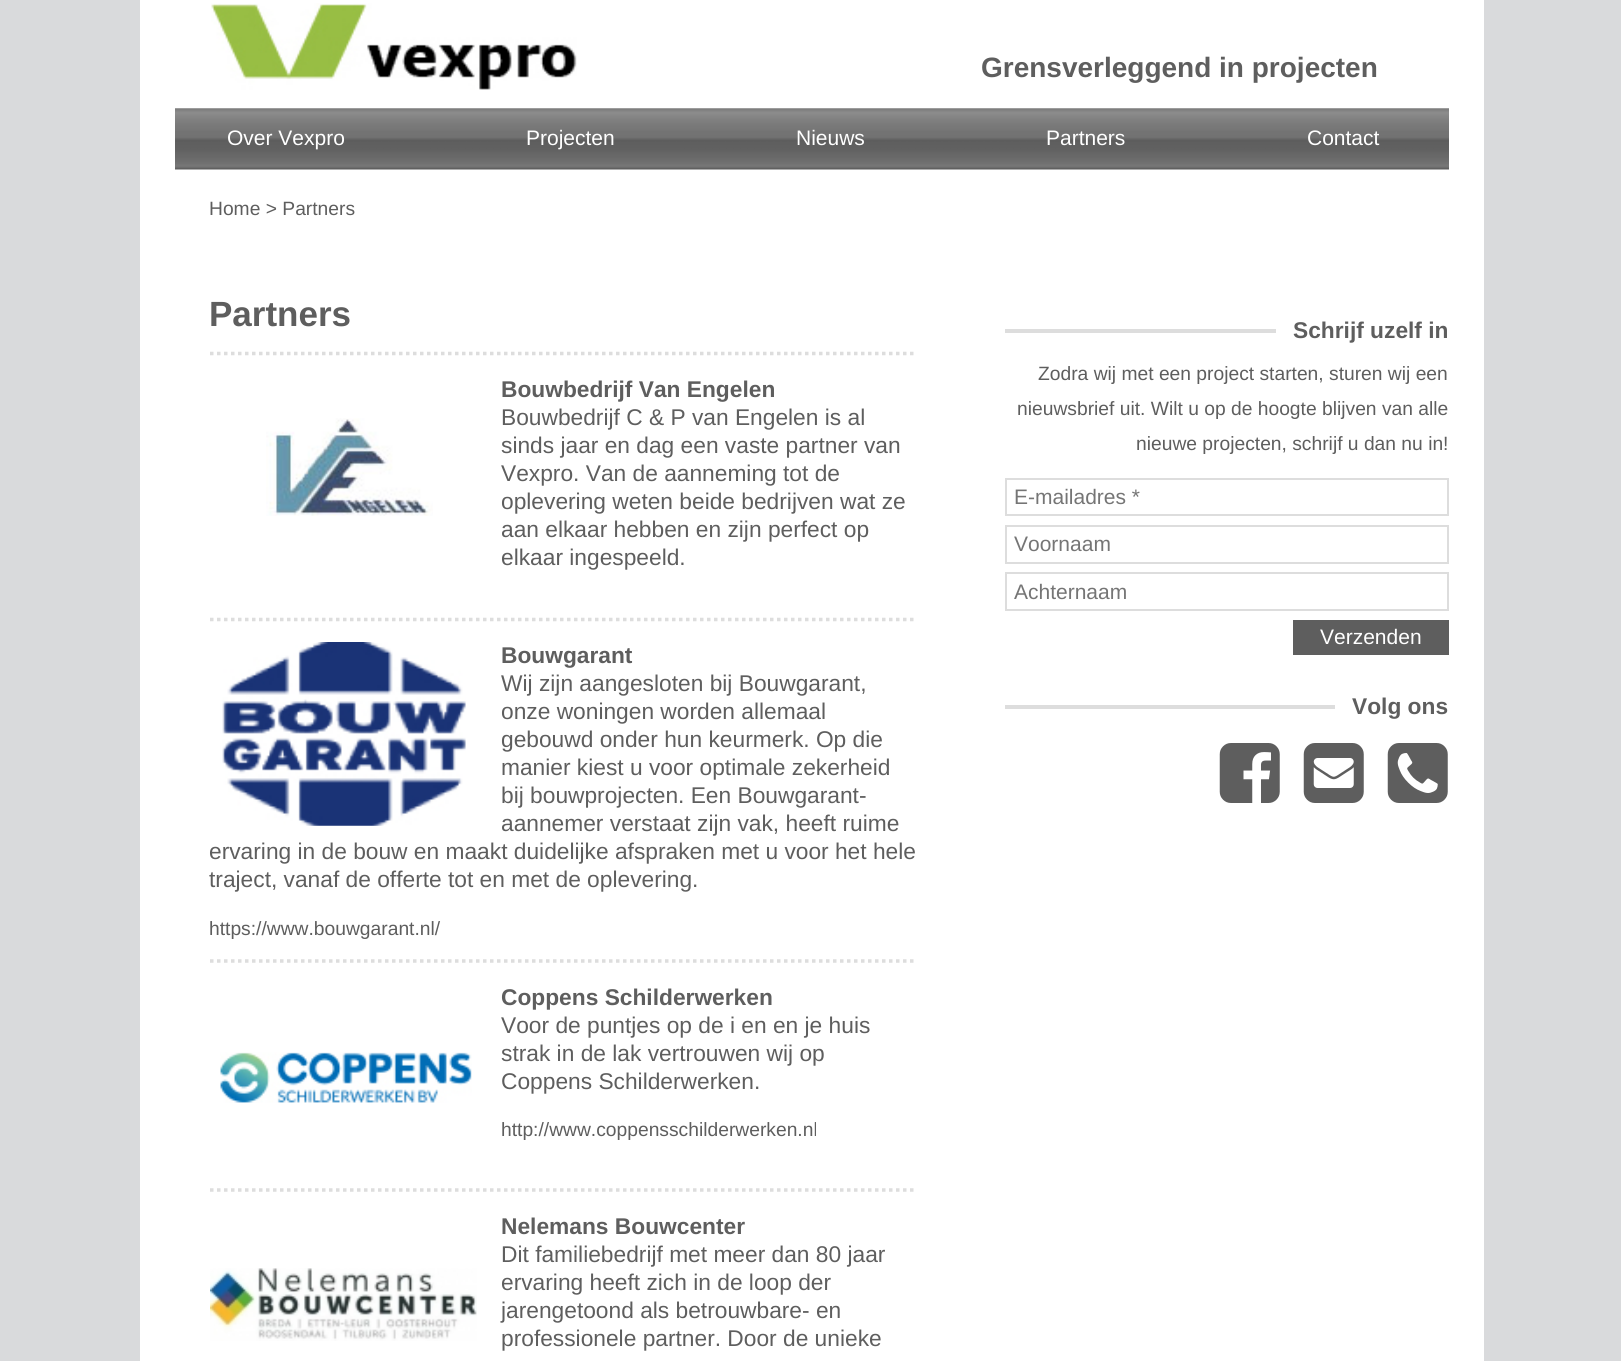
import math
import cairo

surface = cairo.ImageSurface(cairo.FORMAT_RGB24, 1621, 1361)
ctx = cairo.Context(surface)
options = cairo.FontOptions()
options.set_hint_metrics(cairo.HINT_METRICS_OFF)
options.set_hint_style(cairo.HINT_STYLE_NONE)
ctx.set_font_options(options)
ctx.set_miter_limit(4)


def set_color(code):
    ctx.set_source_rgb(*(v / 255 for v in bytes.fromhex(code[-6:])))


def draw_text(x, y, s, family, size, color, bold=False, italic=False):
    ctx.select_font_face(family, cairo.FONT_SLANT_ITALIC if italic else cairo.FONT_SLANT_NORMAL, cairo.FONT_WEIGHT_BOLD if bold else cairo.FONT_WEIGHT_NORMAL)
    ctx.set_font_size(size)
    set_color(color)
    ctx.move_to(x, y)
    ctx.show_text(s)


def fill_rect(x, y, w, h, color):
    set_color(color)
    ctx.rectangle(x, y, w, h)
    ctx.fill()


def draw_image(path, x, y, w, h):
    ctx.save()
    ctx.set_source_surface(cairo.ImageSurface.create_from_png(path), x, y)
    ctx.rectangle(x, y, w, h)
    ctx.fill()
    ctx.restore()


set_color("#d9dadc")
ctx.paint()
fill_rect(140, 0, 1344, 1361, "#ffffff")
draw_image("assets/img1.png", 211, 3, 366, 87)
draw_text(981, 77, "Grensverleggend in projecten", "Liberation Sans", 28, "#5e5e5e", bold=True)
draw_image("assets/img2.png", 175, 108, 1274, 62)
draw_text(227, 145, "Over Vexpro", "Liberation Sans", 21, "#ffffff")
draw_text(526, 145, "Projecten", "Liberation Sans", 21, "#ffffff")
draw_text(796, 145, "Nieuws", "Liberation Sans", 21, "#ffffff")
draw_text(1046, 145, "Partners", "Liberation Sans", 21, "#ffffff")
draw_text(1307, 145, "Contact", "Liberation Sans", 21, "#ffffff")
draw_text(209, 215, "Home > Partners", "Liberation Sans", 19.25, "#5e5e5e")
draw_text(209, 326, "Partners", "Liberation Sans", 35, "#5e5e5e", bold=True)
ctx.new_path()
ctx.move_to(210, 353.5)
ctx.line_to(917, 353.5)
set_color("#dddddd")
ctx.set_line_width(3.5)
ctx.set_dash([3.5, 3.5])
ctx.stroke()
draw_text(501, 397, "Bouwbedrijf Van Engelen", "Liberation Sans", 22.75, "#5e5e5e", bold=True)
draw_image("assets/img3.png", 266, 418, 167, 98)
draw_text(501, 425, "Bouwbedrijf C & P van Engelen is al", "Liberation Sans", 22.75, "#5e5e5e")
draw_text(501, 453, "sinds jaar en dag een vaste partner van", "Liberation Sans", 22.75, "#5e5e5e")
draw_text(501, 481, "Vexpro. Van de aanneming tot de", "Liberation Sans", 22.75, "#5e5e5e")
draw_text(501, 509, "oplevering weten beide bedrijven wat ze", "Liberation Sans", 22.75, "#5e5e5e")
draw_text(501, 537, "aan elkaar hebben en zijn perfect op", "Liberation Sans", 22.75, "#5e5e5e")
draw_text(501, 565, "elkaar ingespeeld.", "Liberation Sans", 22.75, "#5e5e5e")
ctx.new_path()
ctx.move_to(210, 619.5)
ctx.line_to(917, 619.5)
set_color("#dddddd")
ctx.stroke()
draw_image("assets/img4.png", 222, 642, 244, 184)
draw_text(501, 663, "Bouwgarant", "Liberation Sans", 22.75, "#5e5e5e", bold=True)
draw_text(501, 691, "Wij zijn aangesloten bij Bouwgarant,", "Liberation Sans", 22.75, "#5e5e5e")
draw_text(501, 719, "onze woningen worden allemaal", "Liberation Sans", 22.75, "#5e5e5e")
draw_text(501, 747, "gebouwd onder hun keurmerk. Op die", "Liberation Sans", 22.75, "#5e5e5e")
draw_text(501, 775, "manier kiest u voor optimale zekerheid", "Liberation Sans", 22.75, "#5e5e5e")
draw_text(501, 803, "bij bouwprojecten. Een Bouwgarant-", "Liberation Sans", 22.75, "#5e5e5e")
draw_text(501, 831, "aannemer verstaat zijn vak, heeft ruime", "Liberation Sans", 22.75, "#5e5e5e")
draw_text(209, 859, "ervaring in de bouw en maakt duidelijke afspraken met u voor het hele", "Liberation Sans", 22.75, "#5e5e5e")
draw_text(209, 887, "traject, vanaf de offerte tot en met de oplevering.", "Liberation Sans", 22.75, "#5e5e5e")
draw_text(209, 935, "https://www.bouwgarant.nl/", "Liberation Sans", 19.25, "#5e5e5e")
ctx.new_path()
ctx.move_to(210, 961)
ctx.line_to(917, 961)
set_color("#dddddd")
ctx.stroke()
draw_text(501, 1005, "Coppens Schilderwerken", "Liberation Sans", 22.75, "#5e5e5e", bold=True)
draw_image("assets/img5.png", 220, 1052, 252, 51)
draw_text(501, 1033, "Voor de puntjes op de i en en je huis", "Liberation Sans", 22.75, "#5e5e5e")
draw_text(501, 1061, "strak in de lak vertrouwen wij op", "Liberation Sans", 22.75, "#5e5e5e")
draw_text(501, 1089, "Coppens Schilderwerken.", "Liberation Sans", 22.75, "#5e5e5e")
draw_text(501, 1136, "http://www.coppensschilderwerken.nl", "Liberation Sans", 19.25, "#5e5e5e")
ctx.new_path()
ctx.move_to(210, 1190)
ctx.line_to(917, 1190)
set_color("#dddddd")
ctx.stroke()
draw_text(501, 1234, "Nelemans Bouwcenter", "Liberation Sans", 22.75, "#5e5e5e", bold=True)
draw_image("assets/img6.png", 210, 1268, 267, 73)
draw_text(501, 1262, "Dit familiebedrijf met meer dan 80 jaar", "Liberation Sans", 22.75, "#5e5e5e")
draw_text(501, 1290, "ervaring heeft zich in de loop der", "Liberation Sans", 22.75, "#5e5e5e")
draw_text(501, 1318, "jarengetoond als betrouwbare- en", "Liberation Sans", 22.75, "#5e5e5e")
draw_text(501, 1346, "professionele partner. Door de unieke", "Liberation Sans", 22.75, "#5e5e5e")
fill_rect(1005, 329, 271, 4, "#dddddd")
draw_text(1293, 338, "Schrijf uzelf in", "Liberation Sans", 22.75, "#5e5e5e", bold=True)
draw_text(1038, 380, "Zodra wij met een project starten, sturen wij een", "Liberation Sans", 19.25, "#5e5e5e")
draw_text(1017, 415, "nieuwsbrief uit. Wilt u op de hoogte blijven van alle", "Liberation Sans", 19.25, "#5e5e5e")
draw_text(1136, 450, "nieuwe projecten, schrijf u dan nu in!", "Liberation Sans", 19.25, "#5e5e5e")
ctx.rectangle(1006, 479, 442, 36)
set_color("#dddddd")
ctx.set_line_width(2)
ctx.set_dash([])
ctx.stroke()
draw_text(1014, 504, "E-mailadres *", "Liberation Sans", 21, "#757575")
ctx.rectangle(1006, 526, 442, 37)
set_color("#dddddd")
ctx.stroke()
draw_text(1014, 551, "Voornaam", "Liberation Sans", 21, "#757575")
ctx.rectangle(1006, 573, 442, 37)
set_color("#dddddd")
ctx.stroke()
draw_text(1014, 599, "Achternaam", "Liberation Sans", 21, "#757575")
fill_rect(1293, 620, 156, 35, "#5e5e5e")
draw_text(1320, 644, "Verzenden", "Liberation Sans", 21, "#ffffff")
fill_rect(1005, 705, 330, 4, "#dddddd")
draw_text(1352, 714, "Volg ons", "Liberation Sans", 22.75, "#5e5e5e", bold=True)
draw_image("assets/img7.png", 1219, 743, 61, 60)
draw_image("assets/img8.png", 1303, 743, 61, 60)
draw_image("assets/img9.png", 1387, 743, 61, 60)
surface.write_to_png("output.png")
